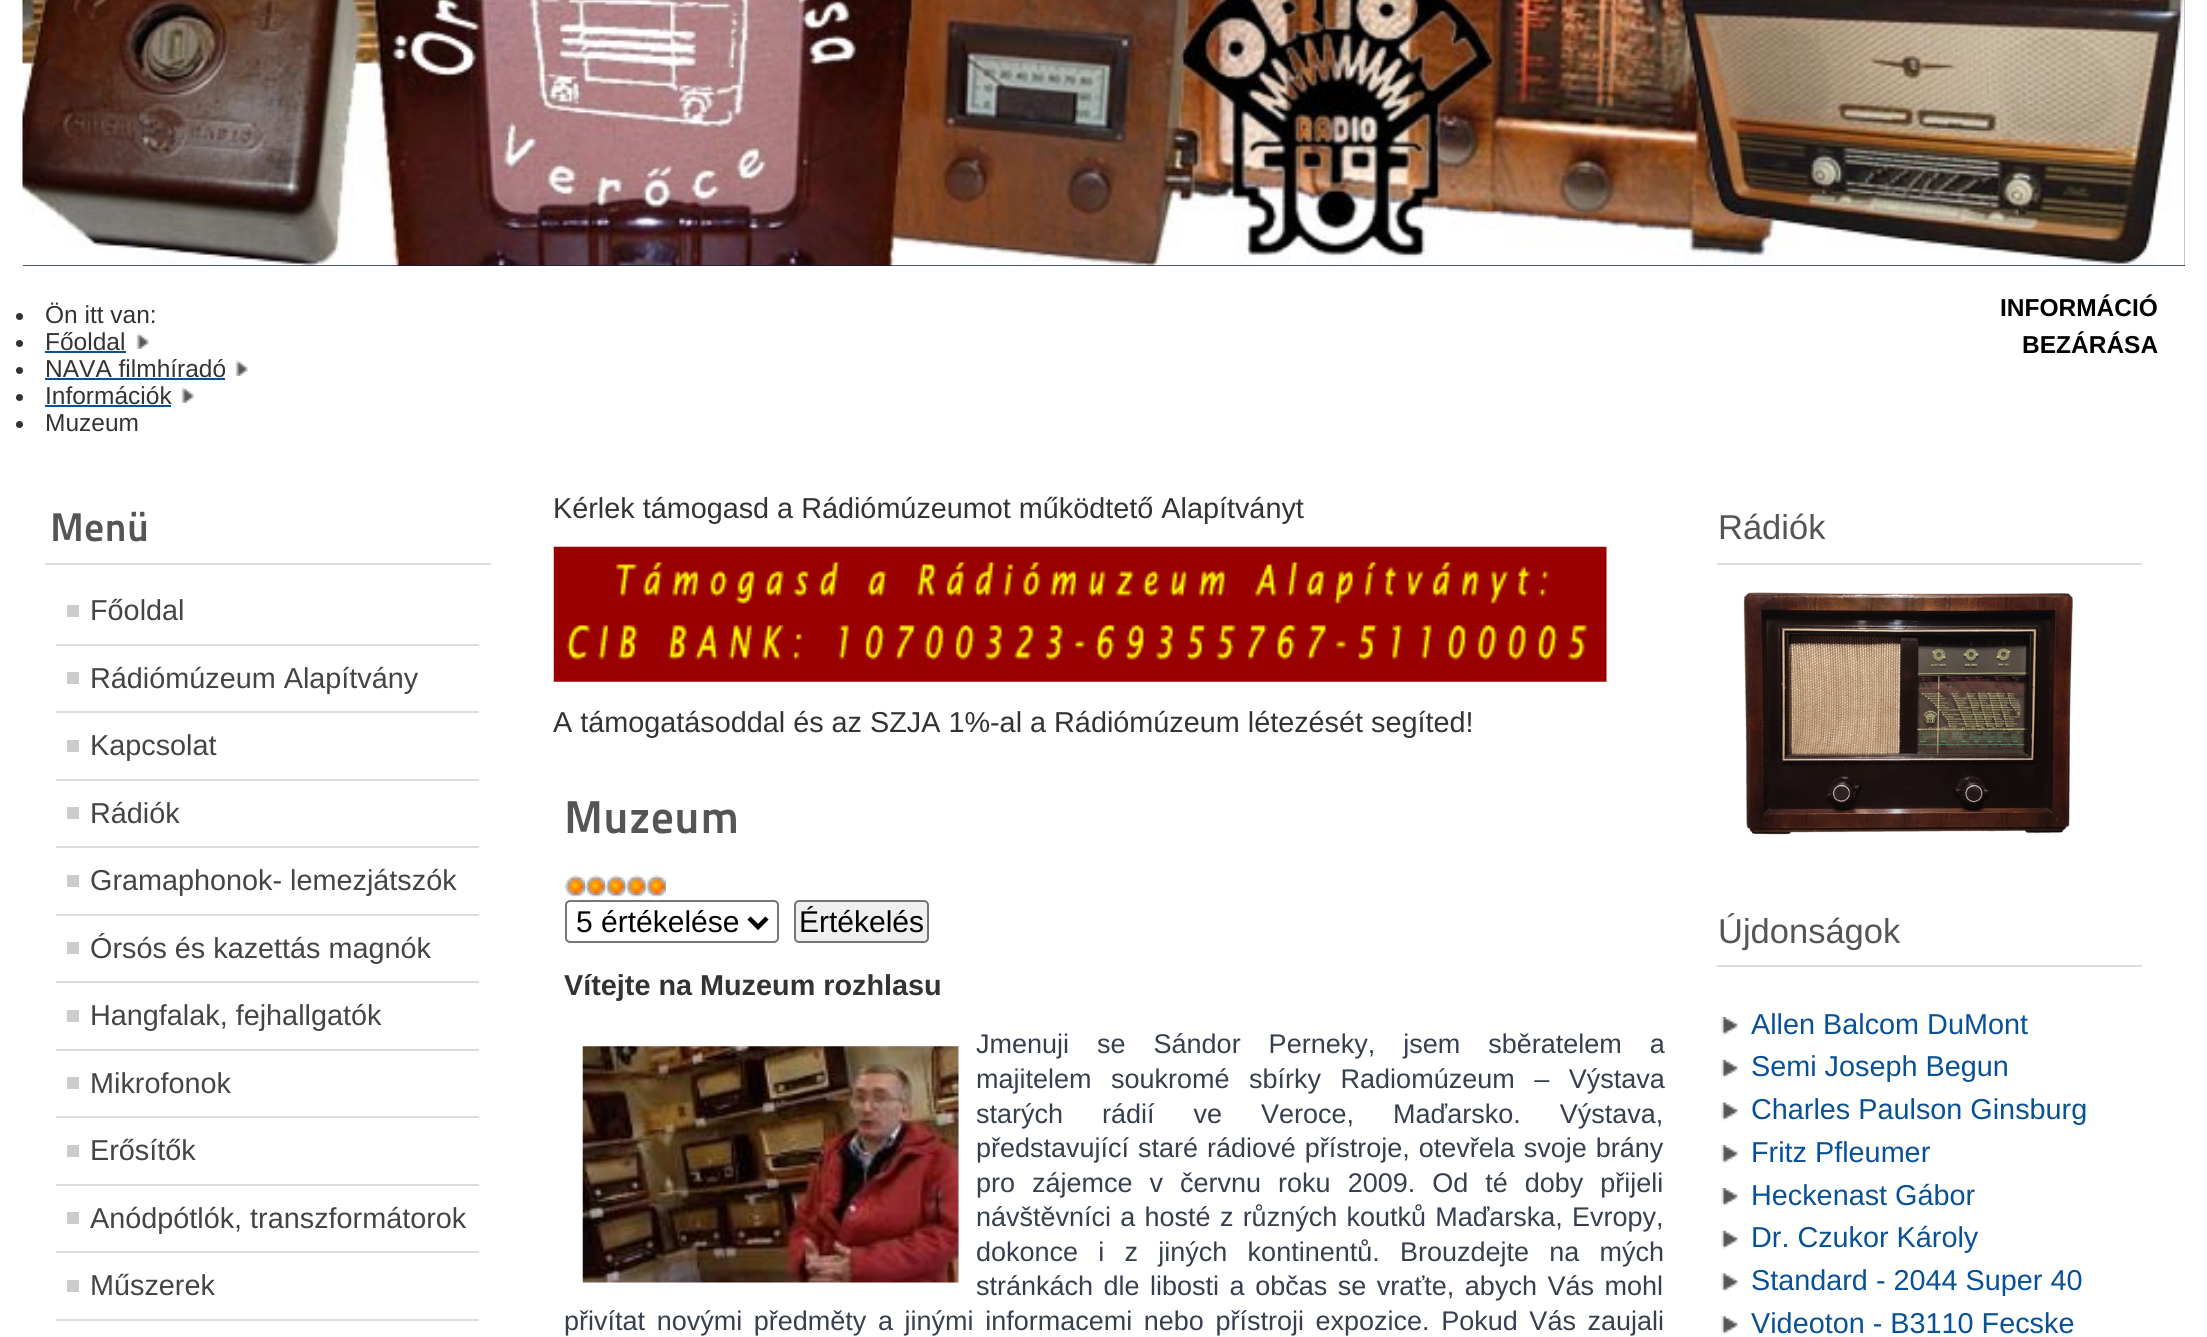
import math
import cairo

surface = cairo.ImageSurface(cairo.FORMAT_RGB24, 2207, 1337)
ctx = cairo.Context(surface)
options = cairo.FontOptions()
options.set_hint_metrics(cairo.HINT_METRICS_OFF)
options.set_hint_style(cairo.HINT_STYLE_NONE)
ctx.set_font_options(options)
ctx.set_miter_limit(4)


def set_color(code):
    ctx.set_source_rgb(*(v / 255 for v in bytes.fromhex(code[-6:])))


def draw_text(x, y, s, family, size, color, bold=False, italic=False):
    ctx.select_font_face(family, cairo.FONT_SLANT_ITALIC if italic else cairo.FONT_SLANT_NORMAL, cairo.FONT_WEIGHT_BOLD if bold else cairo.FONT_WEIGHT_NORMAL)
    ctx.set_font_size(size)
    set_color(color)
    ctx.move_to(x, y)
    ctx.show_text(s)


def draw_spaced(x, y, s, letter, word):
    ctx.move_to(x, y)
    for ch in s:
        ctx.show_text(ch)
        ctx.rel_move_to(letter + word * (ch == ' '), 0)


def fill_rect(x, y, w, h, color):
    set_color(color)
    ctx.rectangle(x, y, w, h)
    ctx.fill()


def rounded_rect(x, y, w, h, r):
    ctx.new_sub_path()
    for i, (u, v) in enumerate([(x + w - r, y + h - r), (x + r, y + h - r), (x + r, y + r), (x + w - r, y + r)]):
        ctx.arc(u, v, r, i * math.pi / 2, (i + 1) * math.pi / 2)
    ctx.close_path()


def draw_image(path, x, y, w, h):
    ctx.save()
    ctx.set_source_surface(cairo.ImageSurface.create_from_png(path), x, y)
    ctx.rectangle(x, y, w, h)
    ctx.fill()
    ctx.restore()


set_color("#ffffff")
ctx.paint()
fill_rect(23, 0, 2162, 266, "#0c1a3e")
draw_image("assets/img1.png", 22, 0, 2163, 266)
set_color("#333333")
ctx.arc(19.5, 316.5, 3.5, 0, 2 * math.pi)
ctx.fill()
draw_text(45, 323, "Ön itt van:", "Liberation Sans", 24.5, "#333333")
ctx.new_path()
ctx.arc(19.5, 343.5, 3.5, 0, 2 * math.pi)
ctx.fill()
draw_text(45, 350, "Főoldal", "Liberation Sans", 24.5, "#333333")
fill_rect(45, 351, 81, 2, "#095197")
draw_image("assets/img2.png", 136, 333, 14, 16)
set_color("#333333")
ctx.arc(19.5, 370.5, 3.5, 0, 2 * math.pi)
ctx.fill()
draw_text(45, 377, "NAVA filmhíradó", "Liberation Sans", 24.5, "#333333")
fill_rect(45, 378, 180, 2, "#095197")
draw_image("assets/img3.png", 235, 360, 14, 16)
set_color("#333333")
ctx.arc(19.5, 397.5, 3.5, 0, 2 * math.pi)
ctx.fill()
draw_text(45, 404, "Információk", "Liberation Sans", 24.5, "#333333")
fill_rect(45, 405, 126, 2, "#095197")
draw_image("assets/img4.png", 181, 387, 14, 16)
set_color("#333333")
ctx.arc(19.5, 424.5, 3.5, 0, 2 * math.pi)
ctx.fill()
draw_text(45, 431, "Muzeum", "Liberation Sans", 24.5, "#333333")
draw_text(2000, 316, "INFORMÁCIÓ", "Liberation Sans", 24.5, "#000000", bold=True)
draw_text(2022, 353, "BEZÁRÁSA", "Liberation Sans", 24.5, "#000000", bold=True)
fill_rect(45, 563, 446, 2, "#dddddd")
draw_text(50, 541, "Menü", "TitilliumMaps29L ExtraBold", 40, "#555555")
fill_rect(56, 644, 423, 2, "#dddddd")
fill_rect(67, 605, 12, 12, "#cccccc")
draw_text(90, 620, "Főoldal", "Liberation Sans", 28.8, "#444444")
fill_rect(56, 711, 423, 2, "#dddddd")
fill_rect(67, 672, 12, 12, "#cccccc")
draw_text(90, 688, "Rádiómúzeum Alapítvány", "Liberation Sans", 28.8, "#444444")
fill_rect(56, 779, 423, 2, "#dddddd")
fill_rect(67, 740, 12, 12, "#cccccc")
draw_text(90, 755, "Kapcsolat", "Liberation Sans", 28.8, "#444444")
fill_rect(56, 846, 423, 2, "#dddddd")
fill_rect(67, 807, 12, 12, "#cccccc")
draw_text(90, 823, "Rádiók", "Liberation Sans", 28.8, "#444444")
fill_rect(56, 914, 423, 2, "#dddddd")
fill_rect(67, 875, 12, 12, "#cccccc")
draw_text(90, 890, "Gramaphonok- lemezjátszók", "Liberation Sans", 28.8, "#444444")
fill_rect(56, 981, 423, 2, "#dddddd")
fill_rect(67, 942, 12, 12, "#cccccc")
draw_text(90, 958, "Órsós és kazettás magnók", "Liberation Sans", 28.8, "#444444")
fill_rect(56, 1049, 423, 2, "#dddddd")
fill_rect(67, 1010, 12, 12, "#cccccc")
draw_text(90, 1025, "Hangfalak, fejhallgatók", "Liberation Sans", 28.8, "#444444")
fill_rect(56, 1116, 423, 2, "#dddddd")
fill_rect(67, 1077, 12, 12, "#cccccc")
draw_text(90, 1093, "Mikrofonok", "Liberation Sans", 28.8, "#444444")
fill_rect(56, 1184, 423, 2, "#dddddd")
fill_rect(67, 1145, 12, 12, "#cccccc")
draw_text(90, 1160, "Erősítők", "Liberation Sans", 28.8, "#444444")
fill_rect(56, 1251, 423, 2, "#dddddd")
fill_rect(67, 1212, 12, 12, "#cccccc")
draw_text(90, 1228, "Anódpótlók, transzformátorok", "Liberation Sans", 28.8, "#444444")
fill_rect(56, 1319, 423, 2, "#dddddd")
fill_rect(67, 1280, 12, 12, "#cccccc")
draw_text(90, 1295, "Műszerek", "Liberation Sans", 28.8, "#444444")
draw_text(553, 518, "Kérlek támogasd a Rádiómúzeumot működtető Alapítványt", "Liberation Sans", 28.8, "#333333")
draw_image("assets/img5.png", 553, 546, 1054, 136)
draw_text(553, 732, "A támogatásoddal és az SZJA 1%-al a Rádiómúzeum létezését segíted!", "Liberation Sans", 28.8, "#333333")
draw_text(564, 833, "Muzeum", "TitilliumMaps29L ExtraBold", 46, "#555555")
draw_image("assets/img6.png", 564, 875, 21, 22)
draw_image("assets/img7.png", 585, 875, 21, 22)
draw_image("assets/img8.png", 605, 875, 21, 22)
draw_image("assets/img9.png", 625, 875, 21, 22)
draw_image("assets/img10.png", 645, 875, 21, 22)
rounded_rect(566, 901, 212, 41, 4)
set_color("#767676")
ctx.stroke()
ctx.new_path()
ctx.move_to(749, 918)
ctx.line_to(758, 927)
ctx.line_to(767, 918)
set_color("#000000")
ctx.set_line_width(4.5)
ctx.stroke()
draw_text(576, 932, "5 értékelése", "Liberation Sans", 30, "#000000")
set_color("#efefef")
rounded_rect(795, 901, 133, 41, 4)
ctx.fill_preserve()
set_color("#767676")
ctx.set_line_width(2)
ctx.stroke()
draw_text(799, 932, "Értékelés", "Liberation Sans", 30, "#000000")
draw_text(564, 995, "Vítejte na Muzeum rozhlasu", "Liberation Sans", 28.8, "#333333", bold=True)
ctx.select_font_face("Liberation Sans")
ctx.set_font_size(27)
set_color("#373e4d")
draw_spaced(976, 1053, "Jmenuji se Sándor Perneky, jsem sběratelem a", 0, 20.5)
draw_spaced(976, 1088, "majitelem soukromé sbírky Radiomúzeum – Výstava", 0, 12)
draw_spaced(976, 1123, "starých rádií ve Veroce, Maďarsko. Výstava,", 0, 31.5)
draw_spaced(976, 1157, "představující staré rádiové přístroje, otevřela svoje brány", 0, 1.5)
draw_spaced(976, 1192, "pro zájemce v červnu roku 2009. Od té doby přijeli", 0, 9.5)
draw_spaced(976, 1226, "návštěvníci a hosté z různých koutků Maďarska, Evropy,", 0, 1.75)
draw_spaced(976, 1261, "dokonce i z jiných kontinentů. Brouzdejte na mých", 0, 12.75)
draw_spaced(976, 1295, "stránkách dle libosti a občas se vraťte, abych Vás mohl", 0, 3)
draw_spaced(564, 1330, "přivítat novými předměty a jinými informacemi nebo přístroji expozice. Pokud Vás zaujali", 0, 4.1)
draw_image("assets/img11.png", 582, 1046, 377, 237)
fill_rect(1717, 563, 425, 2, "#dddddd")
draw_text(1718, 539, "Rádiók", "Liberation Sans", 34.5, "#555555")
draw_image("assets/img12.png", 1743, 592, 330, 243)
fill_rect(1717, 965, 425, 2, "#dddddd")
draw_text(1718, 943, "Újdonságok", "Liberation Sans", 34.5, "#555555")
draw_image("assets/img13.png", 1721, 1017, 17, 19)
draw_text(1751, 1034, "Allen Balcom DuMont", "Liberation Sans", 28.8, "#095197")
draw_image("assets/img14.png", 1721, 1059, 17, 20)
draw_text(1751, 1076, "Semi Joseph Begun", "Liberation Sans", 28.8, "#095197")
draw_image("assets/img15.png", 1721, 1102, 18, 19)
draw_text(1751, 1119, "Charles Paulson Ginsburg", "Liberation Sans", 28.8, "#095197")
draw_image("assets/img16.png", 1721, 1145, 17, 19)
draw_text(1751, 1162, "Fritz Pfleumer", "Liberation Sans", 28.8, "#095197")
draw_image("assets/img13.png", 1721, 1188, 17, 19)
draw_text(1751, 1205, "Heckenast Gábor", "Liberation Sans", 28.8, "#095197")
draw_image("assets/img14.png", 1721, 1230, 17, 20)
draw_text(1751, 1247, "Dr. Czukor Károly", "Liberation Sans", 28.8, "#095197")
draw_image("assets/img15.png", 1721, 1273, 18, 19)
draw_text(1751, 1290, "Standard - 2044 Super 40", "Liberation Sans", 28.8, "#095197")
draw_image("assets/img17.png", 1721, 1316, 17, 19)
draw_text(1751, 1333, "Videoton - B3110 Fecske", "Liberation Sans", 28.8, "#095197")
surface.write_to_png("output.png")
